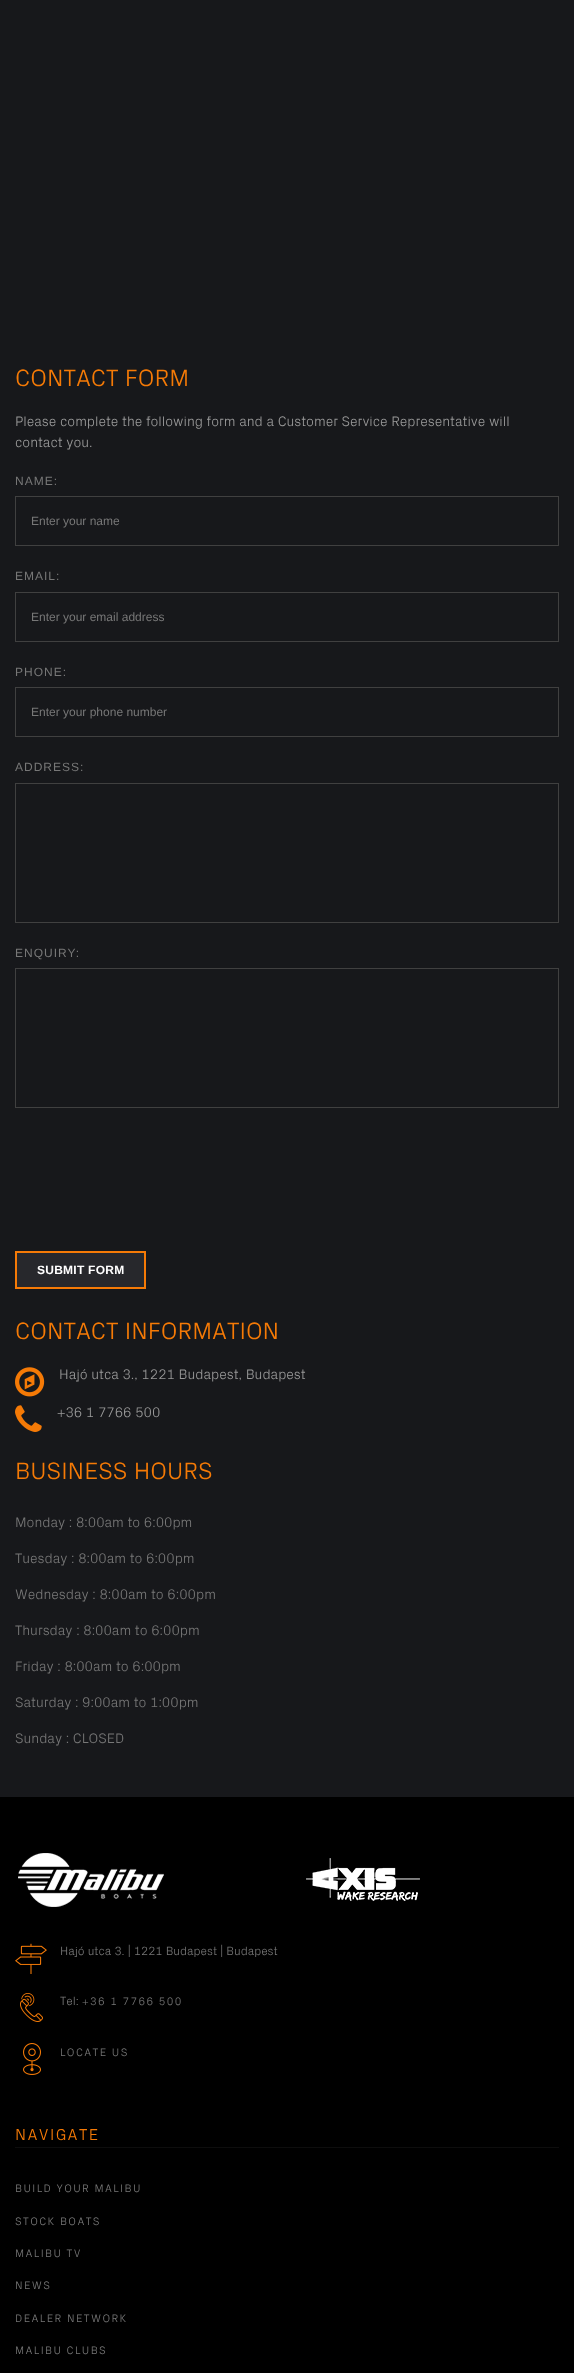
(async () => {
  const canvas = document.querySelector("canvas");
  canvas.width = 574;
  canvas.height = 2373;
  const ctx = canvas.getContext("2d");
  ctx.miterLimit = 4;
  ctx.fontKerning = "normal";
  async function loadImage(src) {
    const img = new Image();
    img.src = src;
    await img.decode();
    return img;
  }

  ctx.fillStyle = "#17181b";
  ctx.fillRect(0, 0, 574, 2373);
  ctx.strokeStyle = "#404040";
  ctx.strokeRect(15.5, 496.5, 543, 49);
  ctx.strokeRect(15.5, 592.5, 543, 49);
  ctx.strokeRect(15.5, 687.5, 543, 49);
  ctx.strokeRect(15.5, 783.5, 543, 139);
  ctx.strokeRect(15.5, 968.5, 543, 139);
  ctx.fillStyle = "#27282c";
  ctx.beginPath();
  ctx.rect(16, 1252, 129, 36);
  ctx.fill();
  ctx.strokeStyle = "#f57a06";
  ctx.lineWidth = 2;
  ctx.stroke();
  ctx.drawImage(await loadImage("img/1.png"), 15, 1367, 30, 30);
  ctx.drawImage(await loadImage("img/2.png"), 15, 1405, 27, 27);
  ctx.fillStyle = "#000000";
  ctx.fillRect(0, 1797, 574, 576);
  ctx.drawImage(await loadImage("img/3.png"), 18, 1853, 146, 54);
  ctx.drawImage(await loadImage("img/4.png"), 306, 1858, 114, 43);
  ctx.drawImage(await loadImage("img/5.png"), 15, 1943, 32, 31);
  ctx.drawImage(await loadImage("img/6.png"), 20, 1993, 23, 29);
  ctx.drawImage(await loadImage("img/7.png"), 23, 2043, 18, 32);
  ctx.fillStyle = "#0d0d0d";
  ctx.fillRect(15, 2147, 544, 1);
  ctx.font = "300 24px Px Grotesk";
  ctx.fillStyle = "#f57a06";
  ctx.fillText("CONTACT FORM", 15, 386);
  ctx.font = "300 14px Px Grotesk";
  ctx.fillStyle = "#999999";
  ctx.fillText("Please complete the following form and a Customer Service Representative will", 15, 426);
  ctx.fillText("contact you.", 15, 447);
  ctx.letterSpacing = "1px";
  ctx.font = "12px Liberation Sans";
  ctx.fillStyle = "#777777";
  ctx.fillText("NAME:", 15, 485);
  ctx.letterSpacing = "0px";
  ctx.fillText("Enter your name", 31, 525);
  ctx.letterSpacing = "1px";
  ctx.fillText("EMAIL:", 15, 580);
  ctx.letterSpacing = "0px";
  ctx.fillText("Enter your email address", 31, 621);
  ctx.letterSpacing = "1px";
  ctx.fillText("PHONE:", 15, 676);
  ctx.letterSpacing = "0px";
  ctx.fillText("Enter your phone number", 31, 716);
  ctx.letterSpacing = "1px";
  ctx.fillText("ADDRESS:", 15, 771);
  ctx.fillText("ENQUIRY:", 15, 957);
  ctx.letterSpacing = "0.25px";
  ctx.font = "bold 12px Liberation Sans";
  ctx.fillStyle = "#ffffff";
  ctx.fillText("SUBMIT FORM", 37, 1274);
  ctx.letterSpacing = "0px";
  ctx.font = "300 24px Px Grotesk";
  ctx.fillStyle = "#f57a06";
  ctx.fillText("CONTACT INFORMATION", 15, 1339);
  ctx.font = "300 14px Px Grotesk";
  ctx.fillStyle = "#999999";
  ctx.fillText("Hajó utca 3., 1221 Budapest, Budapest", 59, 1379);
  ctx.fillText("+36 1 7766 500", 57, 1417);
  ctx.font = "300 24px Px Grotesk";
  ctx.fillStyle = "#f57a06";
  ctx.fillText("BUSINESS HOURS", 15, 1479);
  ctx.font = "300 14px Px Grotesk";
  ctx.fillStyle = "#777777";
  for (const [text, x, y] of [
    ["Monday : 8:00am to 6:00pm", 15, 1527],
    ["Tuesday : 8:00am to 6:00pm", 15, 1563],
    ["Wednesday : 8:00am to 6:00pm", 15, 1599],
    ["Thursday : 8:00am to 6:00pm", 15, 1635],
    ["Friday : 8:00am to 6:00pm", 15, 1671],
    ["Saturday : 9:00am to 1:00pm", 15, 1707],
    ["Sunday : CLOSED", 15, 1743],
  ]) {
    ctx.fillText(text, x, y);
  }
  ctx.font = "300 12px Px Grotesk";
  ctx.fillText("Hajó utca 3. | 1221 Budapest | Budapest", 60, 1955);
  ctx.fillText("Tel:", 60, 2005);
  ctx.letterSpacing = "1.4px";
  ctx.font = "300 11px Px Grotesk";
  ctx.fillText("+36 1 7766 500", 82, 2005);
  ctx.fillText("LOCATE US", 60, 2056);
  ctx.font = "300 16px Px Grotesk";
  ctx.fillStyle = "#f57a06";
  ctx.fillText("NAVIGATE", 15, 2140);
  ctx.font = "300 11px Px Grotesk";
  ctx.fillStyle = "#777777";
  for (const [text, x, y] of [
    ["BUILD YOUR MALIBU", 15, 2192],
    ["STOCK BOATS", 15, 2225],
    ["MALIBU TV", 15, 2257],
    ["NEWS", 15, 2289],
    ["DEALER NETWORK", 15, 2322],
    ["MALIBU CLUBS", 15, 2354],
  ]) {
    ctx.fillText(text, x, y);
  }
})();
